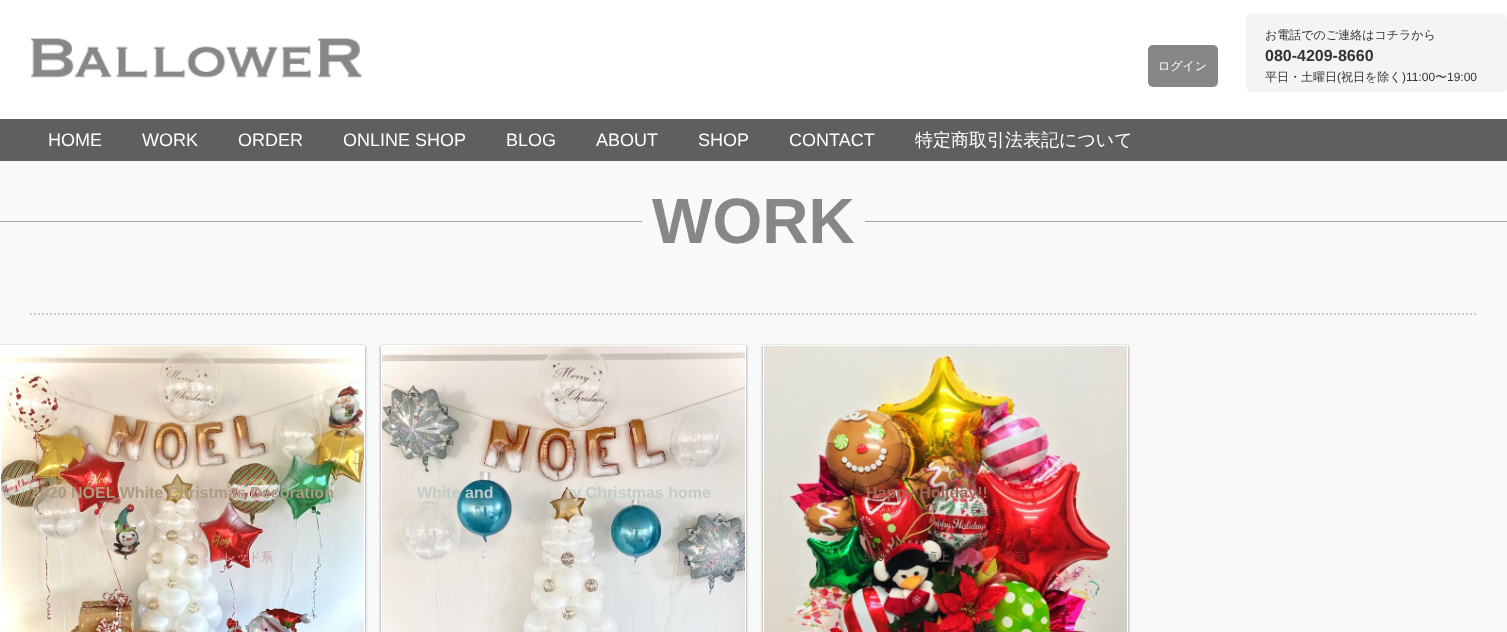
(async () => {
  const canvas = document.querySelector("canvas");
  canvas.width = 1507;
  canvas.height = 632;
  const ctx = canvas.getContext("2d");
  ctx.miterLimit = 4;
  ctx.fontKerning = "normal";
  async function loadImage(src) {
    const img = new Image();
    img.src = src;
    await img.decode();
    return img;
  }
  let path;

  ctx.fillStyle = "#f9f9f9";
  ctx.fillRect(0, 0, 1507, 632);
  ctx.fillStyle = "#ffffff";
  ctx.fillRect(0, 0, 1507, 119);
  ctx.drawImage(await loadImage("img/1.png"), 31, 38, 331, 40);
  ctx.fillStyle = "#888686";
  ctx.beginPath();
  ctx.roundRect(1148, 45, 70, 42, 5);
  ctx.fill();
  ctx.fillStyle = "#f4f4f4";
  ctx.beginPath();
  ctx.roundRect(1246, 14, 261, 78, 5);
  ctx.fill();
  for (const [x, y, w, h, color] of [
    [0, 119, 1507, 42, "#5f5f5f"],
    [0, 221, 1507, 1, "#a8a5a1"],
    [642, 221, 223, 1, "#f9f9f9"],
  ]) {
    ctx.fillStyle = color;
    ctx.fillRect(x, y, w, h);
  }
  path = new Path2D("M30 314H1477");
  ctx.strokeStyle = "#cccccc";
  ctx.lineWidth = 2;
  ctx.setLineDash([2, 2]);
  ctx.stroke(path);
  ctx.fillStyle = "rgba(0, 0, 0, 0.5)";
  ctx.filter = "blur(1.5px)";
  ctx.beginPath();
  ctx.rect(0, 346, 365, 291);
  ctx.fill();
  ctx.filter = "none";
  ctx.strokeStyle = "#ffffff";
  ctx.lineWidth = 1;
  ctx.setLineDash([]);
  ctx.strokeRect(0.5, 345.5, 364, 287);
  ctx.drawImage(await loadImage("img/2.png"), 1, 346, 363, 286);
  ctx.filter = "blur(1.5px)";
  ctx.beginPath();
  ctx.rect(381, 346, 365, 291);
  ctx.fill();
  ctx.filter = "none";
  ctx.strokeRect(381.5, 345.5, 364, 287);
  ctx.drawImage(await loadImage("img/3.png"), 382, 346, 363, 286);
  ctx.filter = "blur(1.5px)";
  ctx.beginPath();
  ctx.rect(763, 346, 365, 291);
  ctx.fill();
  ctx.filter = "none";
  ctx.strokeRect(763.5, 345.5, 364, 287);
  ctx.drawImage(await loadImage("img/4.png"), 764, 346, 363, 286);
  ctx.font = "500 12px WenQuanYi Zen Hei";
  ctx.fillStyle = "#ffffff";
  ctx.fillText("ログイン", 1158, 70);
  ctx.fillStyle = "#333333";
  ctx.fillText("お電話でのご連絡はコチラから", 1265, 39);
  ctx.font = "bold 16px Liberation Sans";
  ctx.fillText("080-4209-8660", 1265, 61);
  ctx.font = "500 12px WenQuanYi Zen Hei";
  ctx.fillText("平日・土曜日", 1265, 81);
  ctx.font = "12px Liberation Sans";
  ctx.fillText("(", 1337, 81);
  ctx.font = "500 12px WenQuanYi Zen Hei";
  ctx.fillText("祝日を除く", 1341, 81);
  ctx.font = "12px Liberation Sans";
  ctx.fillText(")11:00", 1402, 81);
  ctx.font = "500 12px WenQuanYi Zen Hei";
  ctx.fillText("〜", 1435, 81);
  ctx.font = "12px Liberation Sans";
  ctx.fillText("19:00", 1447, 81);
  ctx.font = "18px Liberation Sans";
  ctx.fillStyle = "#ffffff";
  for (const [text, x, y] of [
    ["HOME", 48, 146],
    ["WORK", 142, 146],
    ["ORDER", 238, 146],
    ["ONLINE SHOP", 343, 146],
    ["BLOG", 506, 146],
    ["ABOUT", 596, 146],
    ["SHOP", 698, 146],
    ["CONTACT", 789, 146],
  ]) {
    ctx.fillText(text, x, y);
  }
  ctx.font = "500 18px WenQuanYi Zen Hei";
  ctx.fillText("特定商取引法表記について", 915, 146);
  ctx.font = "bold 64px Liberation Sans";
  ctx.fillStyle = "#888686";
  ctx.fillText("WORK", 652, 243);
  ctx.font = "bold 16px Liberation Sans";
  ctx.fillStyle = "#af9a82";
  ctx.fillText("2020 NOEL White Christmas Decoration", 31, 498);
  ctx.font = "500 12px WenQuanYi Zen Hei";
  ctx.fillStyle = "#c9a4a3";
  ctx.fillText("レッド系", 224, 561);
  ctx.font = "bold 16px Liberation Sans";
  ctx.fillStyle = "#c3cbc7";
  ctx.fillText("White and", 417, 498);
  ctx.fillText("ry Christmas home", 566, 498);
  ctx.fillStyle = "#a9665a";
  ctx.fillText("Happy Holiday!!", 866, 498);
  ctx.font = "12px Liberation Sans";
  ctx.fillStyle = "#613930";
  ctx.fillText("5000", 864, 561);
  ctx.font = "500 12px WenQuanYi Zen Hei";
  ctx.fillStyle = "#6d6c65";
  ctx.fillText("卓上", 926, 561);
  ctx.fillStyle = "#a7272e";
  ctx.fillText("卓上　季節", 966, 561);
})();
